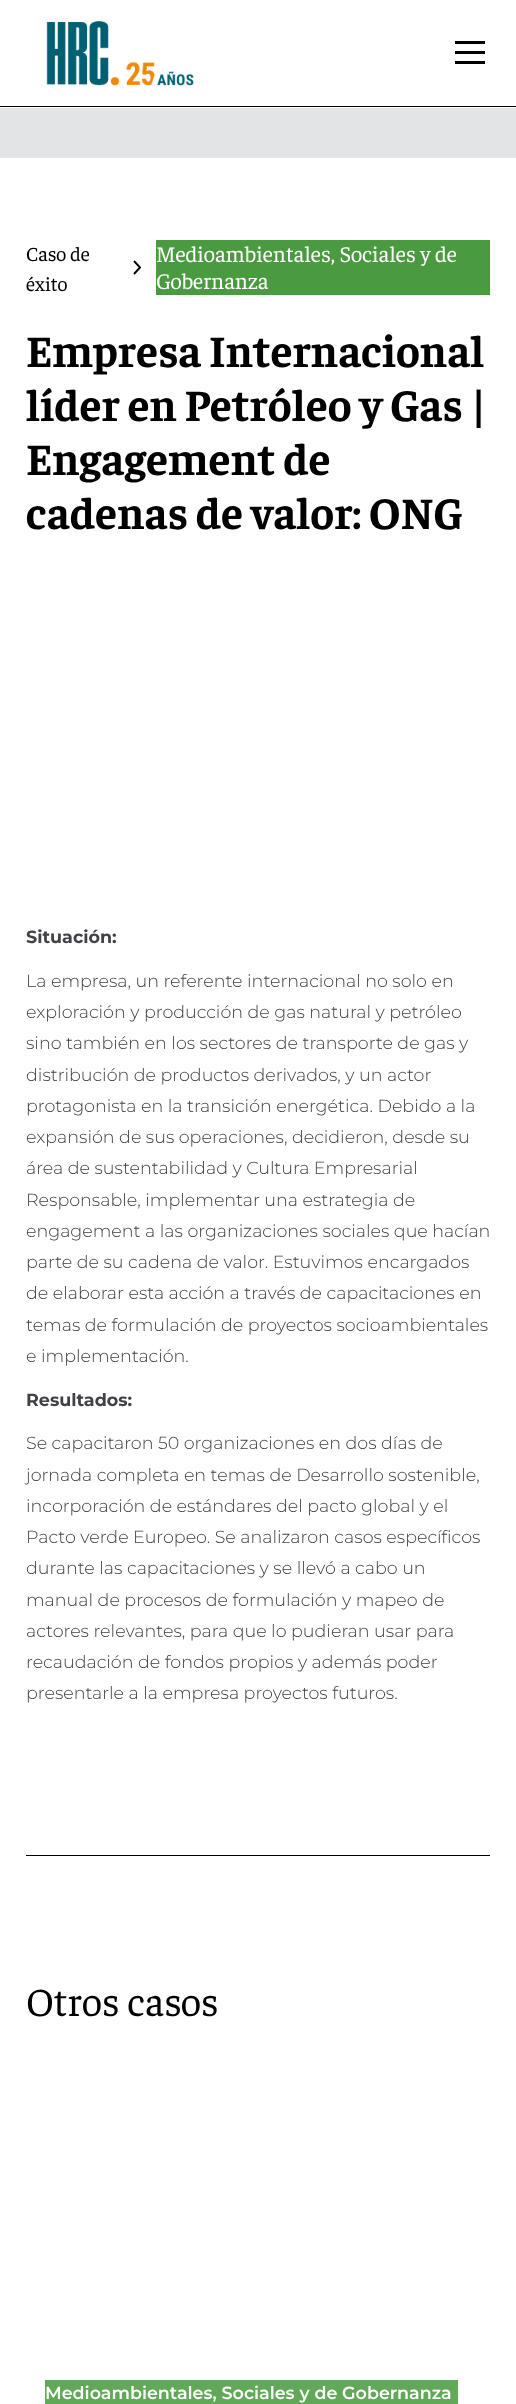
(async () => {
  const canvas = document.querySelector("canvas");
  canvas.width = 516;
  canvas.height = 2404;
  const ctx = canvas.getContext("2d");
  ctx.miterLimit = 4;
  ctx.fontKerning = "normal";
  async function loadImage(src) {
    const img = new Image();
    img.src = src;
    await img.decode();
    return img;
  }
  let path;

  ctx.fillStyle = "#e3e4e6";
  ctx.fillRect(0, 0, 516, 2404);
  ctx.fillStyle = "#ffffff";
  ctx.fillRect(0, 0, 516, 108);
  ctx.fillStyle = "#000000";
  ctx.fillRect(0, 106, 516, 1);
  ctx.drawImage(await loadImage("img/1.png"), 46, 21, 148, 65);
  for (const [x, y, w, h, color] of [
    [455, 41, 30, 3, "#000000"],
    [455, 51, 30, 3, "#000000"],
    [455, 61, 30, 3, "#000000"],
    [0, 158, 516, 2246, "#ffffff"],
  ]) {
    ctx.fillStyle = color;
    ctx.fillRect(x, y, w, h);
  }
  path = new Path2D("M134 261L140 267.5L134 274");
  ctx.strokeStyle = "#000000";
  ctx.lineWidth = 1.9;
  ctx.stroke(path);
  for (const [x, y, w, h, color] of [
    [156, 240, 334, 55, "#4a9b40"],
    [26, 1855, 464, 1, "#000000"],
    [45, 2380, 413, 24, "#61a859"],
  ]) {
    ctx.fillStyle = color;
    ctx.fillRect(x, y, w, h);
  }
  ctx.font = "20px Faustina";
  ctx.fillStyle = "#000000";
  ctx.fillText("Caso de", 26, 261);
  ctx.fillText("éxito", 26, 291);
  ctx.font = "22.5px Faustina";
  ctx.fillStyle = "#ffffff";
  ctx.fillText("Medioambientales, Sociales y de", 156, 262);
  ctx.fillText("Gobernanza", 156, 289);
  ctx.font = "bold 45px Faustina";
  ctx.fillStyle = "#000000";
  for (const [text, x, y] of [
    ["Empresa Internacional", 26, 367],
    ["líder en Petróleo y Gas |", 26, 421],
    ["Engagement de", 26, 475],
    ["cadenas de valor: ONG", 26, 529],
  ]) {
    ctx.fillText(text, x, y);
  }
  ctx.font = "bold 17.5px Montserrat";
  ctx.fillStyle = "#404047";
  ctx.fillText("Situación:", 26, 943);
  ctx.font = "300 17.5px Montserrat";
  for (const [text, x, y] of [
    ["La empresa, un referente internacional no solo en", 26, 987],
    ["exploración y producción de gas natural y petróleo", 26, 1018],
    ["sino también en los sectores de transporte de gas y", 26, 1049],
    ["distribución de productos derivados, y un actor", 26, 1081],
    ["protagonista en la transición energética. Debido a la", 26, 1112],
    ["expansión de sus operaciones, decidieron, desde su", 26, 1143],
    ["área de sustentabilidad y Cultura Empresarial", 26, 1174],
    ["Responsable, implementar una estrategia de", 26, 1206],
    ["engagement a las organizaciones sociales que hacían", 26, 1237],
    ["parte de su cadena de valor. Estuvimos encargados", 26, 1268],
    ["de elaborar esta acción a través de capacitaciones en", 26, 1299],
    ["temas de formulación de proyectos socioambientales", 26, 1331],
    ["e implementación.", 26, 1362],
  ]) {
    ctx.fillText(text, x, y);
  }
  ctx.font = "bold 17.5px Montserrat";
  ctx.fillText("Resultados:", 26, 1406);
  ctx.font = "300 17.5px Montserrat";
  for (const [text, x, y] of [
    ["Se capacitaron 50 organizaciones en dos días de", 26, 1449],
    ["jornada completa en temas de Desarrollo sostenible,", 26, 1481],
    ["incorporación de estándares del pacto global y el", 26, 1512],
    ["Pacto verde Europeo. Se analizaron casos específicos", 26, 1543],
    ["durante las capacitaciones y se llevó a cabo un", 26, 1574],
    ["manual de procesos de formulación y mapeo de", 26, 1606],
    ["actores relevantes, para que lo pudieran usar para", 26, 1637],
    ["recaudación de fondos propios y además poder", 26, 1668],
    ["presentarle a la empresa proyectos futuros.", 26, 1699],
  ]) {
    ctx.fillText(text, x, y);
  }
  ctx.font = "40px Faustina";
  ctx.fillStyle = "#000000";
  ctx.fillText("Otros casos", 26, 2016);
  ctx.font = "600 17.5px Montserrat";
  ctx.fillStyle = "#ffffff";
  ctx.fillText("Medioambientales, Sociales y de Gobernanza", 45, 2399);
})();
